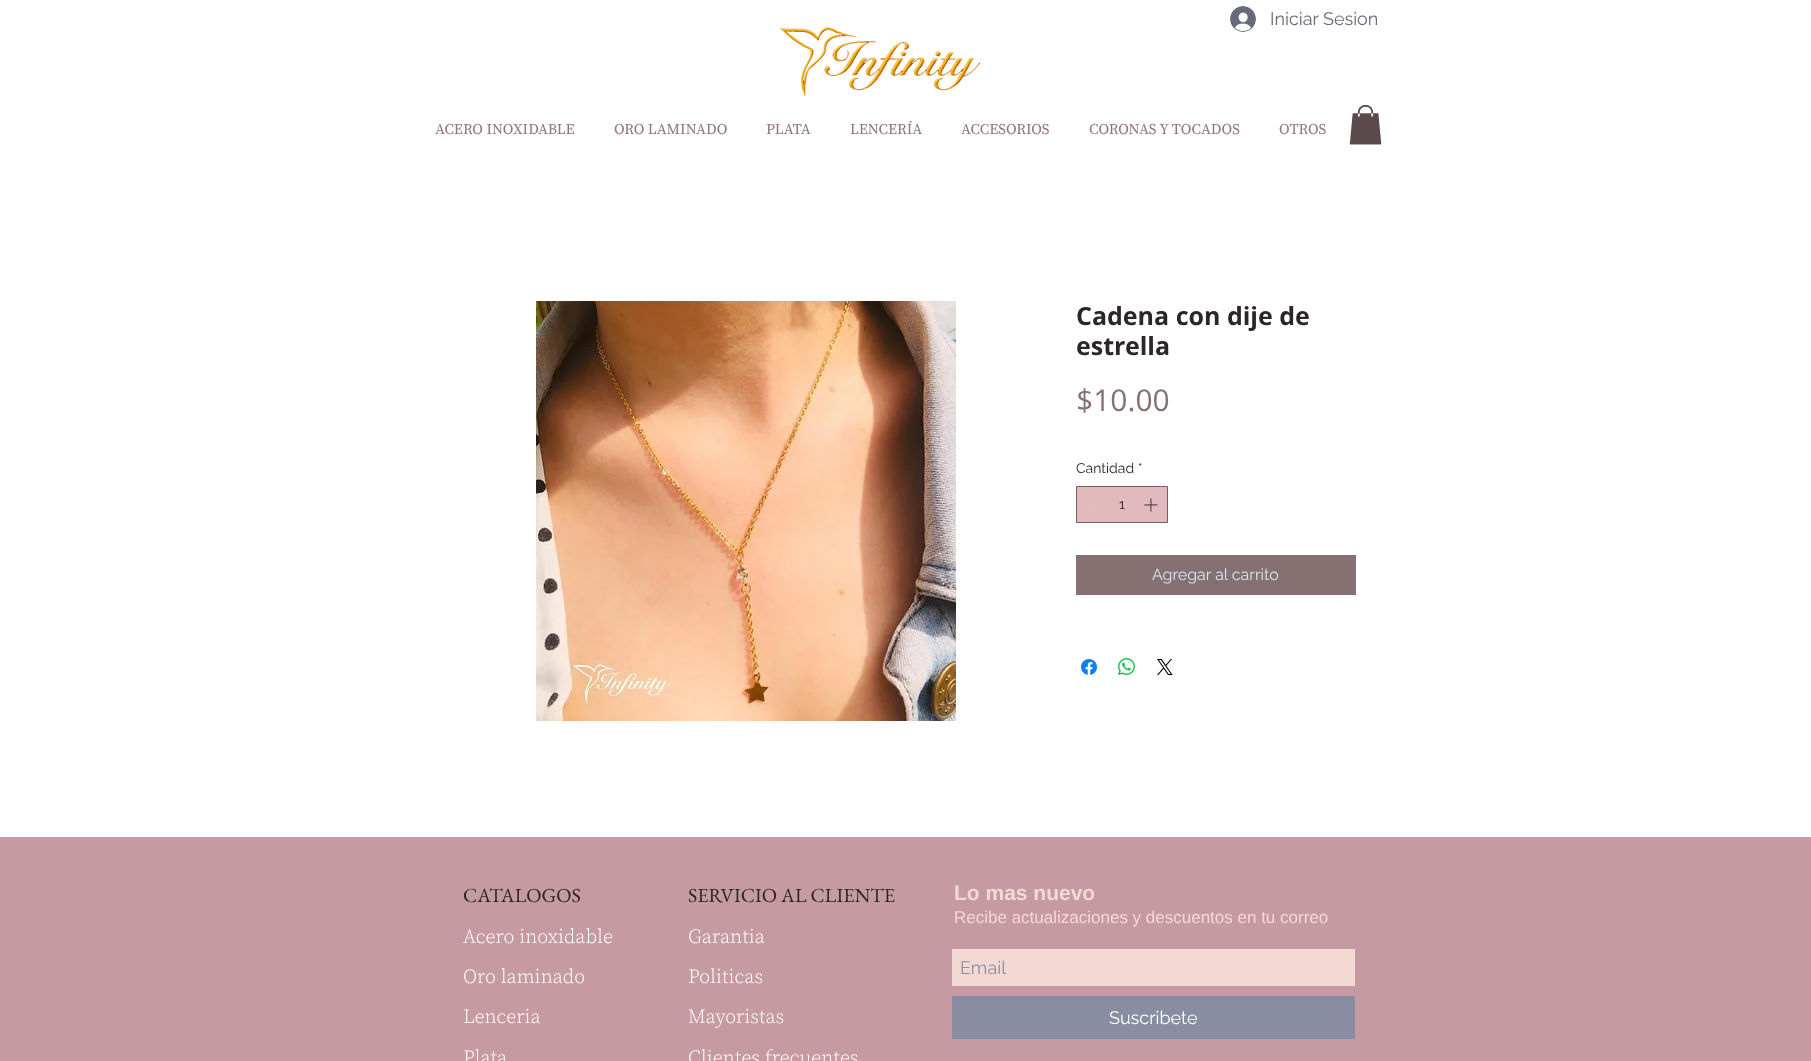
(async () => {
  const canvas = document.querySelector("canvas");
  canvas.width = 1811;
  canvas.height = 1061;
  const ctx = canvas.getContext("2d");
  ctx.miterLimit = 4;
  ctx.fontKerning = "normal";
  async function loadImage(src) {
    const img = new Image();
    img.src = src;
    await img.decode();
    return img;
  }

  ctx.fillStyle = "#ffffff";
  ctx.fillRect(0, 0, 1811, 1061);
  ctx.drawImage(await loadImage("img/1.png"), 1230, 6, 26, 26);
  ctx.drawImage(await loadImage("img/2.png"), 780, 27, 201, 69);
  ctx.drawImage(await loadImage("img/3.png"), 1349, 105, 33, 40);
  ctx.drawImage(await loadImage("img/4.png"), 536, 301, 420, 420);
  ctx.fillStyle = "#e0babd";
  ctx.beginPath();
  ctx.rect(1076.5, 486.5, 91, 36);
  ctx.fill();
  ctx.strokeStyle = "#756162";
  ctx.stroke();
  ctx.fillStyle = "#d4c1c2";
  ctx.fillRect(1088, 505, 13, 1);
  ctx.drawImage(await loadImage("img/5.png"), 1144, 498, 14, 14);
  ctx.fillStyle = "#867071";
  ctx.fillRect(1076, 555, 280, 40);
  ctx.drawImage(await loadImage("img/6.png"), 1081, 659, 16, 16);
  ctx.drawImage(await loadImage("img/7.png"), 1118, 658, 17, 17);
  ctx.drawImage(await loadImage("img/8.png"), 1157, 659, 16, 16);
  for (const [x, y, w, h, color] of [
    [0, 837, 1811, 224, "#c69aa3"],
    [952, 949, 403, 37, "#f4d8d4"],
    [952, 996, 403, 43, "#898da2"],
  ]) {
    ctx.fillStyle = color;
    ctx.fillRect(x, y, w, h);
  }
  ctx.font = "18px Raleway";
  ctx.fillStyle = "#676a79";
  ctx.fillText("Iniciar Sesion", 1270, 25);
  ctx.font = "15px Source Serif Pro";
  ctx.fillStyle = "#95747a";
  for (const [text, x, y] of [
    ["ACERO INOXIDABLE", 435, 134],
    ["ORO LAMINADO", 614, 134],
    ["PLATA", 766, 134],
    ["LENCERÍA", 850, 134],
    ["ACCESORIOS", 961, 134],
    ["CORONAS Y TOCADOS", 1089, 134],
    ["OTROS", 1279, 134],
  ]) {
    ctx.fillText(text, x, y);
  }
  ctx.font = "bold 25px Open Sans";
  ctx.fillStyle = "#2d2526";
  ctx.fillText("Cadena con dije de", 1076, 325);
  ctx.fillText("estrella", 1076, 355);
  ctx.font = "30px Open Sans";
  ctx.fillStyle = "#867071";
  ctx.fillText("$10.00", 1076, 411);
  ctx.font = "14px Raleway";
  ctx.fillStyle = "#2d2526";
  for (const [text, x, y] of [
    ["Cantidad", 1076, 473],
    ["*", 1138, 473],
    ["1", 1119, 509],
  ]) {
    ctx.fillText(text, x, y);
  }
  ctx.font = "16px Raleway";
  ctx.fillStyle = "#d6e7ed";
  ctx.fillText("Agregar al carrito", 1152, 580);
  ctx.font = "20px EB Garamond";
  ctx.fillStyle = "#2d2526";
  ctx.fillText("CATALOGOS", 463, 902);
  ctx.font = "300 20px Source Serif Pro";
  ctx.fillStyle = "#ffffff";
  for (const [text, x, y] of [
    ["Acero inoxidable", 463, 943],
    ["Oro laminado", 463, 983],
    ["Lenceria", 463, 1023],
    ["Plata", 463, 1064],
  ]) {
    ctx.fillText(text, x, y);
  }
  ctx.font = "20px EB Garamond";
  ctx.fillStyle = "#2d2526";
  ctx.fillText("SERVICIO AL CLIENTE", 688, 902);
  ctx.font = "300 20px Source Serif Pro";
  ctx.fillStyle = "#ffffff";
  for (const [text, x, y] of [
    ["Garantia", 688, 943],
    ["Politicas", 688, 983],
    ["Mayoristas", 688, 1023],
    ["Clientes frecuentes", 688, 1064],
  ]) {
    ctx.fillText(text, x, y);
  }
  ctx.font = "bold 21px Liberation Sans";
  ctx.fillStyle = "#f4d8d4";
  ctx.fillText("Lo mas nuevo", 954, 900);
  ctx.font = "17px Liberation Sans";
  ctx.fillText("Recibe actualizaciones y descuentos en tu correo", 954, 923);
  ctx.font = "18px Raleway";
  ctx.fillStyle = "#898da2";
  ctx.fillText("Email", 960, 974);
  ctx.fillStyle = "#ffffff";
  ctx.fillText("Suscribete", 1109, 1024);
})();
